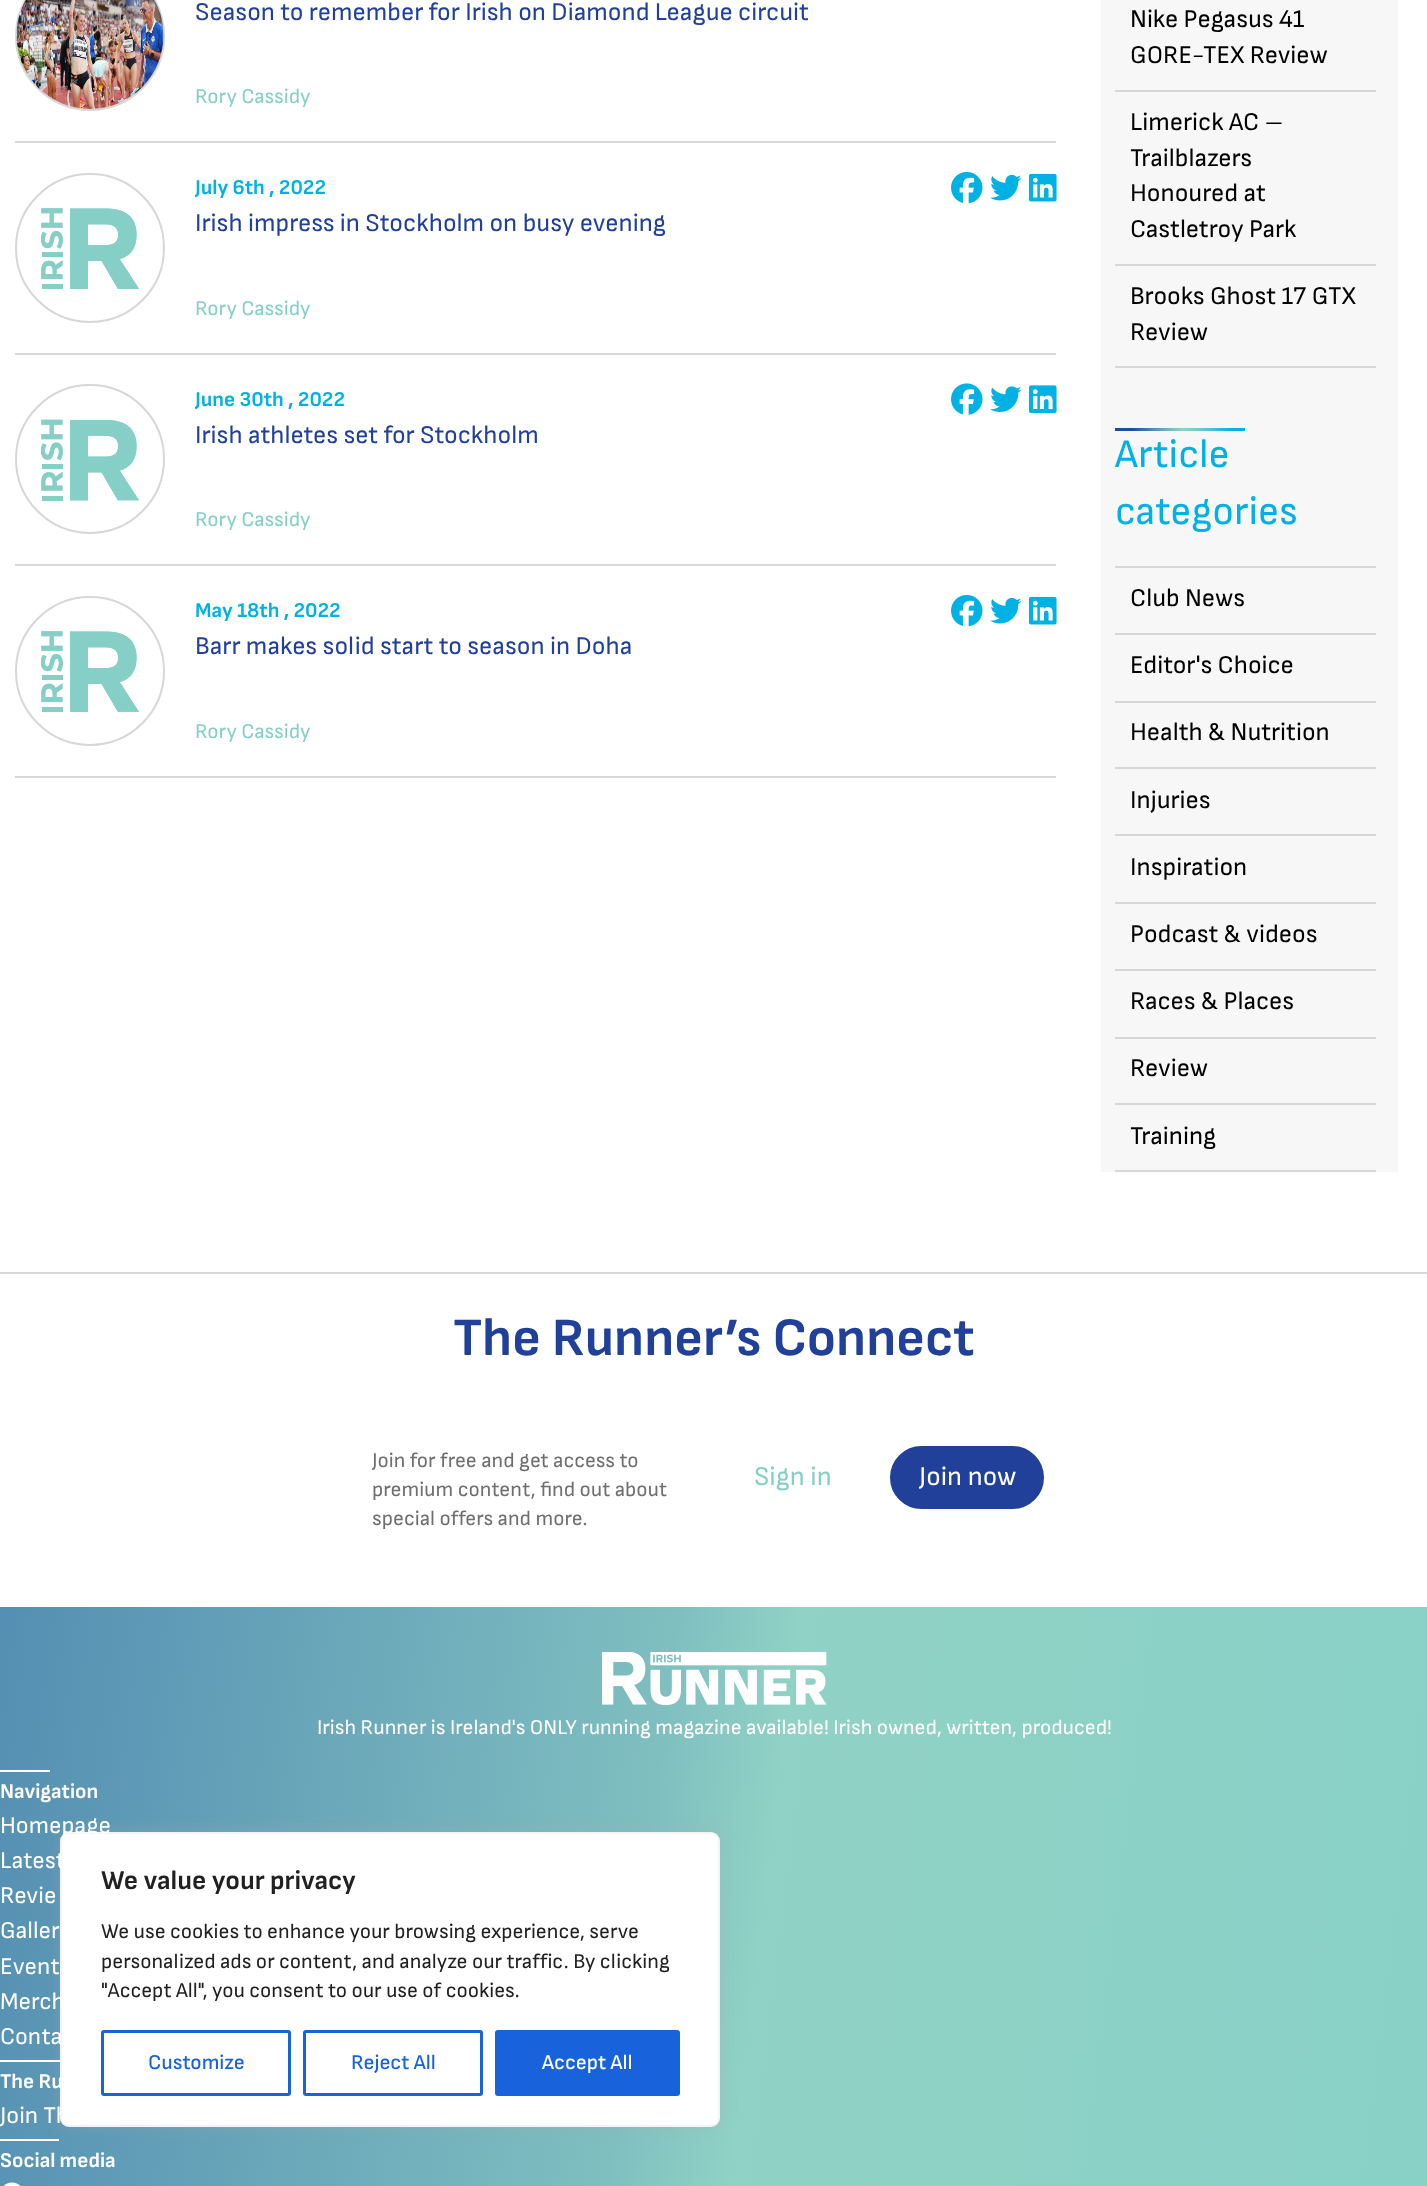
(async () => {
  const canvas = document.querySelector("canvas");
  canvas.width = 1427;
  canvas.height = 2186;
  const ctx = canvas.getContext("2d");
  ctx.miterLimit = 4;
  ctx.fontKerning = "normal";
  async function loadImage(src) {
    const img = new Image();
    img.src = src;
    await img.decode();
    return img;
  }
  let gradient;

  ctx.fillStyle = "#ffffff";
  ctx.fillRect(0, 0, 1427, 2186);
  ctx.fillStyle = "#d7d7d7";
  ctx.fillRect(15, 141, 1041, 2);
  ctx.beginPath();
  ctx.arc(90, 36, 74, 0, Math.PI * 2);
  ctx.strokeStyle = "#d7d7d7";
  ctx.lineWidth = 2;
  ctx.stroke();
  ctx.drawImage(await loadImage("img/1.png"), 16, 0, 148, 109);
  ctx.fillRect(15, 353, 1041, 2);
  ctx.drawImage(await loadImage("img/2.png"), 41, 208, 98, 81);
  ctx.beginPath();
  ctx.arc(90, 248, 74, 0, Math.PI * 2);
  ctx.stroke();
  ctx.drawImage(await loadImage("img/3.png"), 41, 208, 98, 81);
  ctx.drawImage(await loadImage("img/4.png"), 951, 171, 32, 33);
  ctx.drawImage(await loadImage("img/5.png"), 990, 174, 32, 27);
  ctx.drawImage(await loadImage("img/6.png"), 1029, 173, 28, 29);
  ctx.fillRect(15, 564, 1041, 2);
  ctx.drawImage(await loadImage("img/7.png"), 41, 419, 98, 82);
  ctx.beginPath();
  ctx.arc(90, 459, 74, 0, Math.PI * 2);
  ctx.stroke();
  ctx.drawImage(await loadImage("img/8.png"), 41, 419, 98, 82);
  ctx.drawImage(await loadImage("img/9.png"), 951, 383, 32, 32);
  ctx.drawImage(await loadImage("img/10.png"), 990, 386, 32, 26);
  ctx.drawImage(await loadImage("img/11.png"), 1029, 385, 28, 28);
  ctx.fillRect(15, 776, 1041, 2);
  ctx.drawImage(await loadImage("img/2.png"), 41, 631, 98, 81);
  ctx.beginPath();
  ctx.arc(90, 671, 74, 0, Math.PI * 2);
  ctx.stroke();
  ctx.drawImage(await loadImage("img/3.png"), 41, 631, 98, 81);
  ctx.drawImage(await loadImage("img/4.png"), 951, 594, 32, 33);
  ctx.drawImage(await loadImage("img/5.png"), 990, 597, 32, 27);
  ctx.drawImage(await loadImage("img/6.png"), 1029, 596, 28, 29);
  for (const [x, y, w, h, color] of [
    [1101, 0, 297, 1172, "#f7f7f7"],
    [1115, 90, 261, 2, "#d7d7d7"],
    [1115, 264, 261, 2, "#d7d7d7"],
    [1115, 366, 261, 2, "#d7d7d7"],
  ]) {
    ctx.fillStyle = color;
    ctx.fillRect(x, y, w, h);
  }
  gradient = ctx.createLinearGradient(1115, 429, 1245, 429);
  gradient.addColorStop(0, "#1a4ea2");
  gradient.addColorStop(0.13, "#1a4ea2");
  gradient.addColorStop(0.3, "#548fb3");
  gradient.addColorStop(0.44, "#7fbfc0");
  gradient.addColorStop(0.52, "#90d2c5");
  gradient.addColorStop(0.56, "#88d0c7");
  gradient.addColorStop(0.64, "#72cbcb");
  gradient.addColorStop(0.73, "#4ec3d3");
  gradient.addColorStop(0.84, "#1db8de");
  gradient.addColorStop(0.9, "#00b2e4");
  gradient.addColorStop(1, "#00b2e4");
  ctx.fillStyle = gradient;
  ctx.fillRect(1115, 428, 130, 3);
  for (const [x, y, w, h, color] of [
    [1115, 566, 261, 2, "#d7d7d7"],
    [1115, 633, 261, 2, "#d7d7d7"],
    [1115, 701, 261, 2, "#d7d7d7"],
    [1115, 767, 261, 2, "#d7d7d7"],
    [1115, 834, 261, 2, "#d7d7d7"],
    [1115, 902, 261, 2, "#d7d7d7"],
    [1115, 969, 261, 2, "#d7d7d7"],
    [1115, 1037, 261, 2, "#d7d7d7"],
    [1115, 1103, 261, 2, "#d7d7d7"],
    [1115, 1170, 261, 2, "#d7d7d7"],
    [0, 1272, 1427, 2, "#d7d7d7"],
  ]) {
    ctx.fillStyle = color;
    ctx.fillRect(x, y, w, h);
  }
  ctx.fillStyle = "#21409a";
  ctx.beginPath();
  ctx.roundRect(891, 1447, 152, 61, 30.5);
  ctx.fill();
  ctx.strokeStyle = "#21409a";
  ctx.stroke();
  gradient = ctx.createLinearGradient(-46, 1981, 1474, 2168);
  gradient.addColorStop(0, "#548fb3");
  gradient.addColorStop(0.44, "#7fbfc0");
  gradient.addColorStop(0.52, "#90d2c5");
  gradient.addColorStop(1, "#88d0c7");
  ctx.fillStyle = gradient;
  ctx.fillRect(0, 1607, 1427, 579);
  ctx.drawImage(await loadImage("img/12.png"), 602, 1652, 225, 54);
  for (const [x, y, w, h, color] of [
    [0, 1770, 50, 2, "#ffffff"],
    [0, 2060, 60, 2, "#ffffff"],
    [0, 2139, 59, 2, "#ffffff"],
  ]) {
    ctx.fillStyle = color;
    ctx.fillRect(x, y, w, h);
  }
  ctx.drawImage(await loadImage("img/13.png"), 3, 2182, 18, 4);
  ctx.fillStyle = "rgba(172, 171, 171, 0.3)";
  ctx.filter = "blur(7.5px)";
  ctx.beginPath();
  ctx.roundRect(60, 1830, 660, 296, 9);
  ctx.fill();
  ctx.filter = "none";
  ctx.fillStyle = "#ffffff";
  ctx.beginPath();
  ctx.roundRect(61, 1833, 658, 293, 8);
  ctx.fill();
  ctx.strokeStyle = "#f4f4f4";
  ctx.stroke();
  ctx.beginPath();
  ctx.roundRect(102.5, 2031.5, 187, 63, 1.5);
  ctx.strokeStyle = "#1863dc";
  ctx.lineWidth = 3;
  ctx.stroke();
  ctx.beginPath();
  ctx.roundRect(304.5, 2031.5, 177, 63, 1.5);
  ctx.stroke();
  ctx.fillStyle = "#1863dc";
  ctx.beginPath();
  ctx.roundRect(496.5, 2031.5, 182, 63, 1.5);
  ctx.fill();
  ctx.stroke();
  ctx.font = "25.5px Sofia Sans";
  ctx.fillStyle = "#21409a";
  ctx.fillText("Season to remember for Irish on Diamond League circuit", 195, 20);
  ctx.font = "21px Sofia Sans";
  ctx.fillStyle = "#85cfc7";
  ctx.fillText("Rory Cassidy", 195, 103);
  ctx.font = "bold 21px Sofia Sans";
  ctx.fillStyle = "#00b2e4";
  ctx.fillText("July 6th , 2022", 195, 194);
  ctx.font = "25.5px Sofia Sans";
  ctx.fillStyle = "#21409a";
  ctx.fillText("Irish impress in Stockholm on busy evening", 195, 231);
  ctx.font = "21px Sofia Sans";
  ctx.fillStyle = "#85cfc7";
  ctx.fillText("Rory Cassidy", 195, 315);
  ctx.font = "bold 21px Sofia Sans";
  ctx.fillStyle = "#00b2e4";
  ctx.fillText("June 30th , 2022", 195, 406);
  ctx.font = "25.5px Sofia Sans";
  ctx.fillStyle = "#21409a";
  ctx.fillText("Irish athletes set for Stockholm", 195, 443);
  ctx.font = "21px Sofia Sans";
  ctx.fillStyle = "#85cfc7";
  ctx.fillText("Rory Cassidy", 195, 526);
  ctx.font = "bold 21px Sofia Sans";
  ctx.fillStyle = "#00b2e4";
  ctx.fillText("May 18th , 2022", 195, 617);
  ctx.font = "25.5px Sofia Sans";
  ctx.fillStyle = "#21409a";
  ctx.fillText("Barr makes solid start to season in Doha", 195, 654);
  ctx.font = "21px Sofia Sans";
  ctx.fillStyle = "#85cfc7";
  ctx.fillText("Rory Cassidy", 195, 738);
  ctx.font = "25.5px Sofia Sans";
  ctx.fillStyle = "#000000";
  for (const [text, x, y] of [
    ["Nike Pegasus 41", 1130, 27],
    ["GORE-TEX Review", 1130, 63],
    ["Limerick AC –", 1130, 130],
    ["Trailblazers", 1130, 166],
    ["Honoured at", 1130, 201],
    ["Castletroy Park", 1130, 237],
    ["Brooks Ghost 17 GTX", 1130, 304],
    ["Review", 1130, 340],
  ]) {
    ctx.fillText(text, x, y);
  }
  ctx.font = "40.5px Sofia Sans";
  ctx.fillStyle = "#00b2e4";
  ctx.fillText("Article", 1115, 467);
  ctx.fillText("categories", 1115, 524);
  ctx.font = "25.5px Sofia Sans";
  ctx.fillStyle = "#000000";
  for (const [text, x, y] of [
    ["Club News", 1130, 606],
    ["Editor's Choice", 1130, 673],
    ["Health & Nutrition", 1130, 740],
    ["Injuries", 1130, 808],
    ["Inspiration", 1130, 875],
    ["Podcast & videos", 1130, 942],
    ["Races & Places", 1130, 1009],
    ["Review", 1130, 1076],
    ["Training", 1130, 1144],
  ]) {
    ctx.fillText(text, x, y);
  }
  ctx.font = "bold 54px Sofia Sans";
  ctx.fillStyle = "#21409a";
  ctx.fillText("The Runner’s Connect", 453, 1355);
  ctx.font = "21px Sofia Sans";
  ctx.fillStyle = "#6f6f6f";
  for (const [text, x, y] of [
    ["Join for free and get access to", 372, 1467],
    ["premium content, find out about", 372, 1496],
    ["special offers and more.", 372, 1525],
  ]) {
    ctx.fillText(text, x, y);
  }
  ctx.font = "27px Sofia Sans";
  ctx.fillStyle = "#85cfc7";
  ctx.fillText("Sign in", 754, 1485);
  ctx.fillStyle = "#ffffff";
  ctx.fillText("Join now", 919, 1485);
  ctx.font = "21px Sofia Sans";
  ctx.fillText("Irish Runner is Ireland's ONLY running magazine available! Irish owned, written, produced!", 317, 1734);
  ctx.font = "bold 21px Sofia Sans";
  ctx.fillText("Navigation", 0, 1798);
  ctx.font = "24px Sofia Sans";
  for (const [text, x, y] of [
    ["Homepage", 0, 1833],
    ["Latest", 0, 1868],
    ["Revie", 0, 1903],
    ["Galler", 0, 1938],
    ["Event", 0, 1974],
    ["Merch", 0, 2009],
    ["Conta", 0, 2044],
  ]) {
    ctx.fillText(text, x, y);
  }
  ctx.font = "bold 21px Sofia Sans";
  ctx.fillText("The Ru", 0, 2088);
  ctx.font = "24px Sofia Sans";
  ctx.fillText("Join Th", 0, 2123);
  ctx.font = "bold 21px Sofia Sans";
  ctx.fillText("Social media", 0, 2167);
  ctx.font = "bold 27px Sofia Sans";
  ctx.fillStyle = "#212121";
  ctx.fillText("We value your privacy", 101, 1889);
  ctx.font = "21px Sofia Sans";
  for (const [text, x, y] of [
    ["We use cookies to enhance your browsing experience, serve", 101, 1938],
    ["personalized ads or content, and analyze our traffic. By clicking", 101, 1968],
    ["\"Accept All\", you consent to our use of cookies.", 101, 1997],
  ]) {
    ctx.fillText(text, x, y);
  }
  ctx.font = "500 21px Sofia Sans";
  ctx.fillStyle = "#1863dc";
  ctx.fillText("Customize", 148, 2069);
  ctx.fillText("Reject All", 351, 2069);
  ctx.fillStyle = "#ffffff";
  ctx.fillText("Accept All", 542, 2069);
})();
